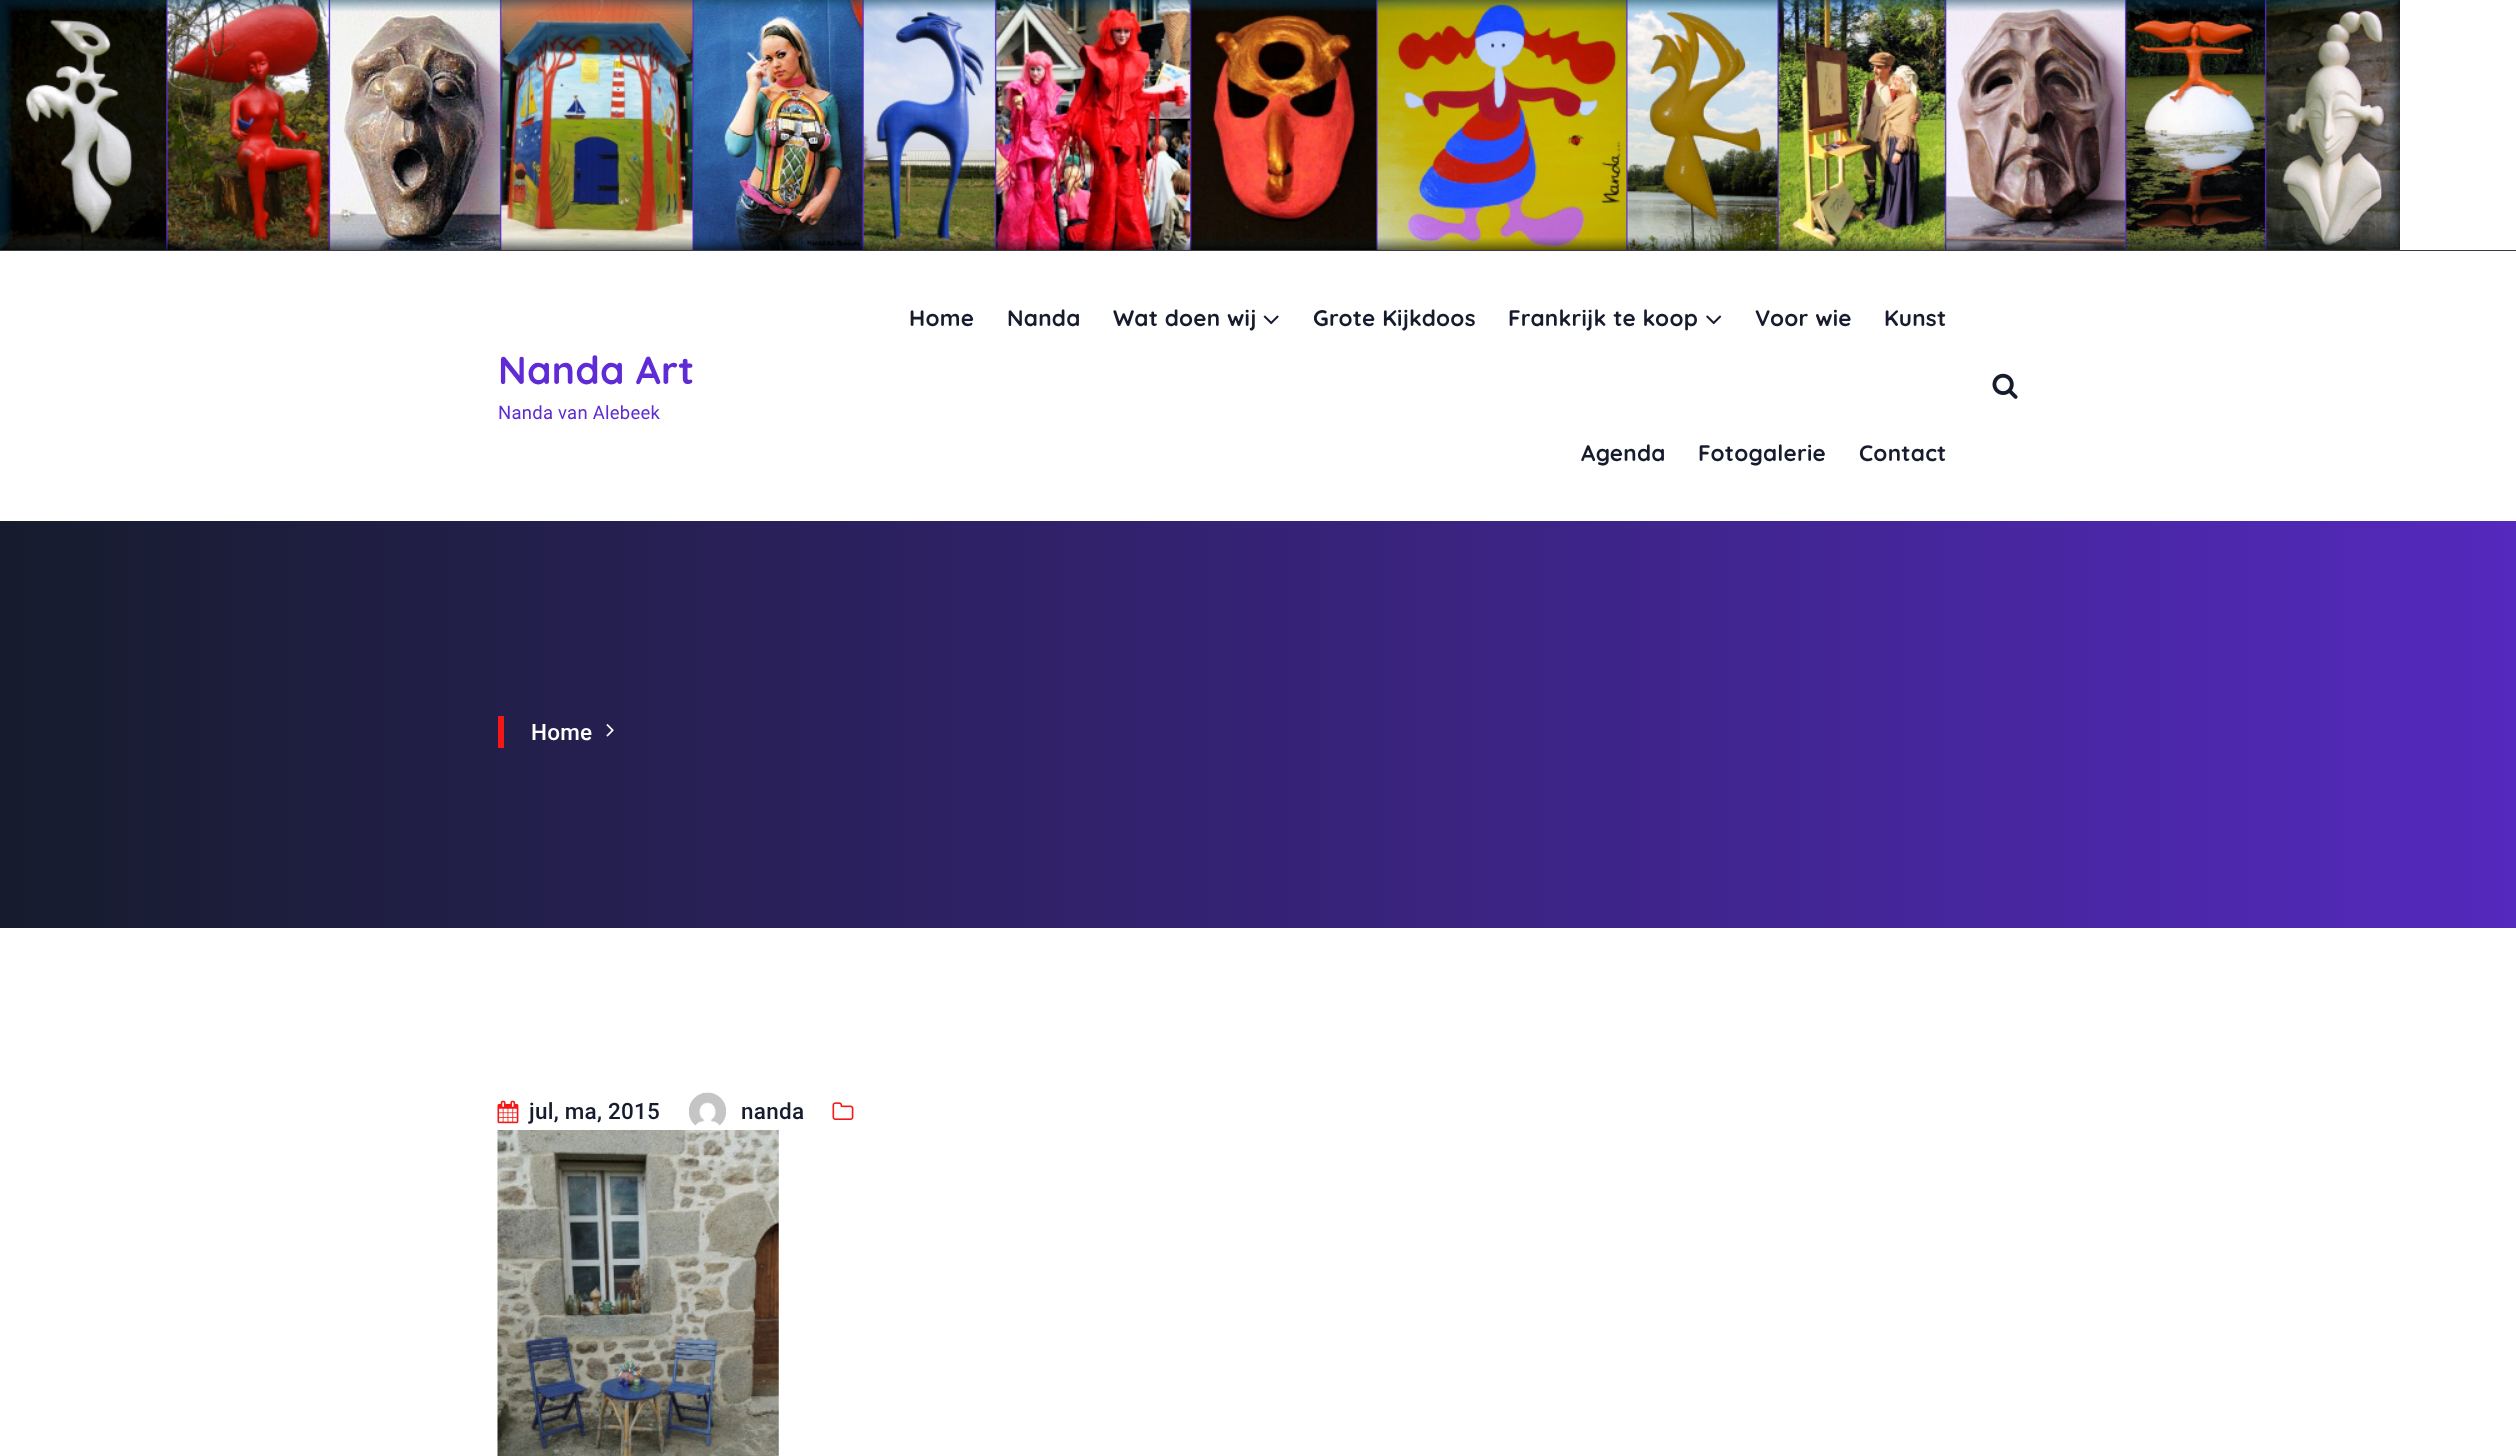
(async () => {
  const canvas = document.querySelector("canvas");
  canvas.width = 2516;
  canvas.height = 1456;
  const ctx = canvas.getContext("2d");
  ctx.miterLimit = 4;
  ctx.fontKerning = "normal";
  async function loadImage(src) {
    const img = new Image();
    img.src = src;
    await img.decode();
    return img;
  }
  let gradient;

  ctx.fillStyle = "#ffffff";
  ctx.fillRect(0, 0, 2516, 1456);
  ctx.drawImage(await loadImage("img/1.png"), 0, 0, 2400, 250);
  ctx.fillStyle = "#373c4a";
  ctx.fillRect(0, 250, 2516, 1);
  ctx.drawImage(await loadImage("img/2.png"), 1263, 315, 16, 10);
  ctx.drawImage(await loadImage("img/3.png"), 1706, 315, 16, 10);
  ctx.drawImage(await loadImage("img/4.png"), 1992, 373, 26, 26);
  gradient = ctx.createLinearGradient(0, 724, 2516, 724);
  gradient.addColorStop(0, "#161c2d");
  gradient.addColorStop(1, "#5429bd");
  ctx.fillStyle = gradient;
  ctx.fillRect(0, 521, 2516, 407);
  ctx.fillStyle = "#f31717";
  ctx.fillRect(498, 716, 6, 32);
  ctx.drawImage(await loadImage("img/5.png"), 606, 724, 8, 13);
  ctx.drawImage(await loadImage("img/6.png"), 497, 1100, 22, 24);
  ctx.drawImage(await loadImage("img/7.png"), 688, 1092, 39, 34);
  ctx.drawImage(await loadImage("img/8.png"), 832, 1102, 22, 18);
  ctx.drawImage(await loadImage("img/9.png"), 497, 1130, 282, 326);
  ctx.letterSpacing = "0.25px";
  ctx.font = "bold 39px Quicksand";
  ctx.fillStyle = "#5f2bd5";
  ctx.fillText("Nanda Art", 498, 384);
  ctx.font = "18.5px Roboto";
  ctx.fillText("Nanda van Alebeek", 498, 419);
  ctx.font = "bold 22.5px Quicksand";
  ctx.fillStyle = "#161c2d";
  for (const [text, x, y] of [
    ["Home", 909, 326],
    ["Nanda", 1007, 326],
    ["Wat doen wij", 1113, 326],
    ["Grote Kijkdoos", 1313, 326],
    ["Frankrijk te koop", 1508, 326],
    ["Voor wie", 1755, 326],
    ["Kunst", 1884, 326],
    ["Agenda", 1581, 461],
    ["Fotogalerie", 1698, 461],
    ["Contact", 1859, 461],
  ]) {
    ctx.fillText(text, x, y);
  }
  ctx.font = "500 22.5px Roboto";
  ctx.fillStyle = "#ffffff";
  ctx.fillText("Home", 531, 740);
  ctx.fillStyle = "#161c2d";
  ctx.fillText("jul, ma, 2015", 529, 1119);
  ctx.fillText("nanda", 741, 1119);
})();
